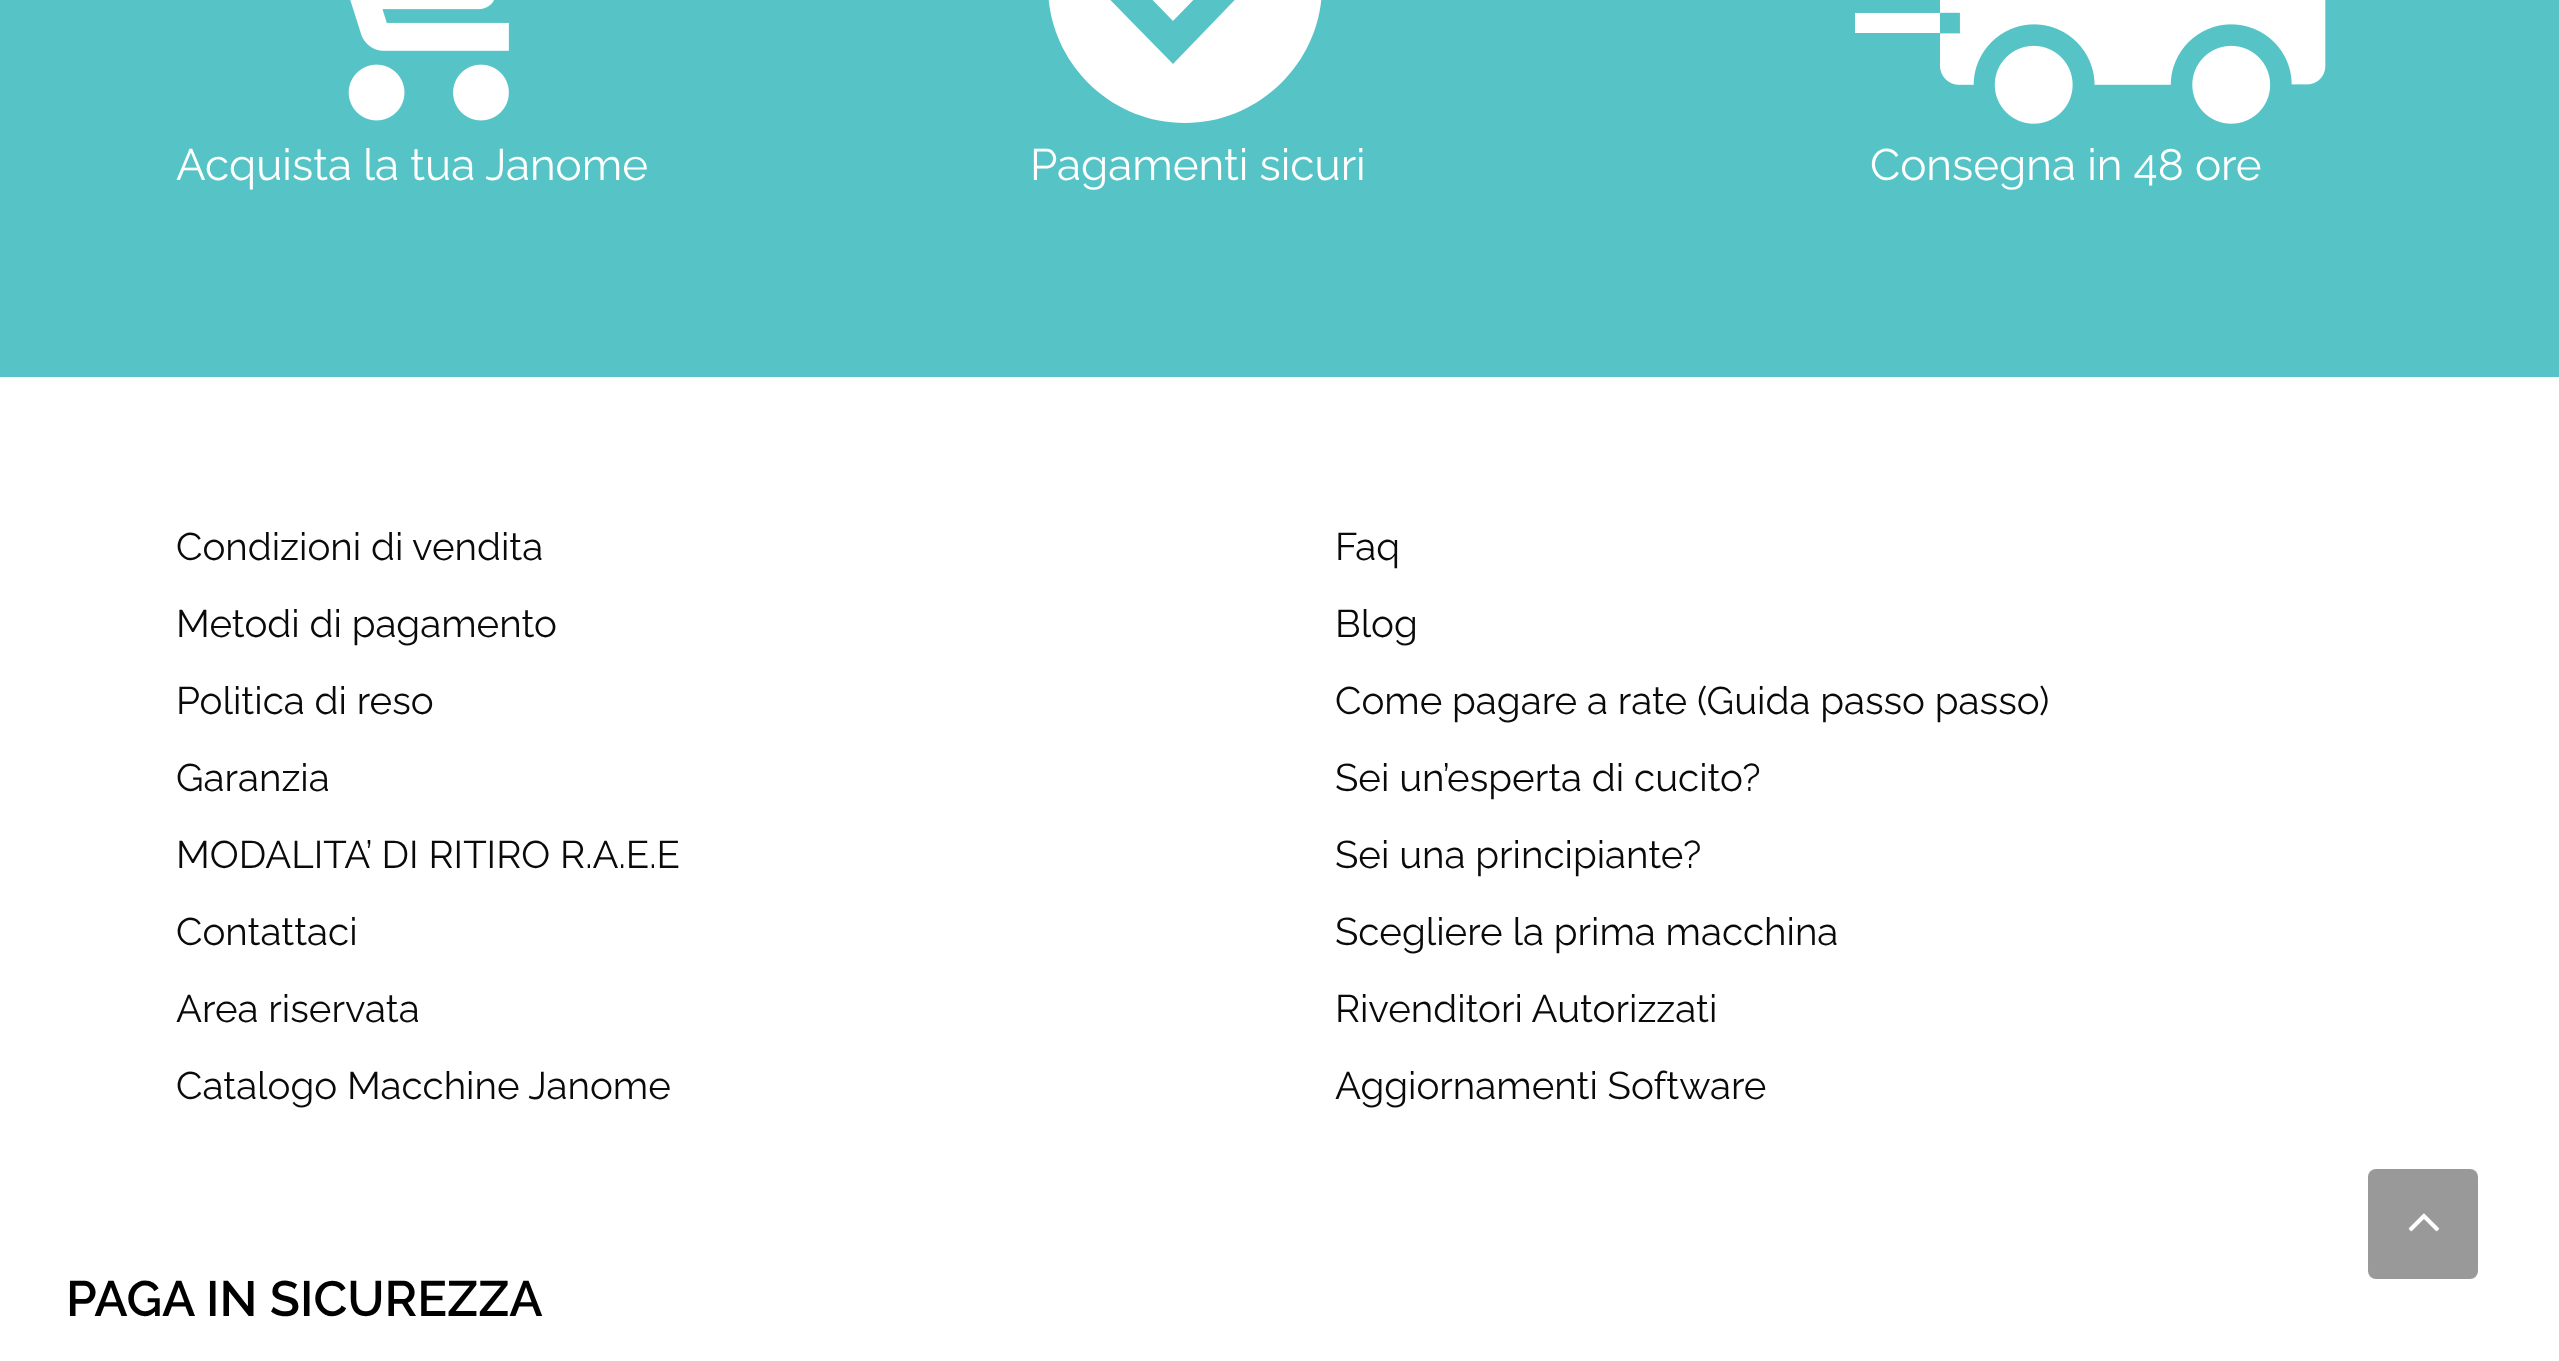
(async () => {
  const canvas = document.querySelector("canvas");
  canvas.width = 2559;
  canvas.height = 1361;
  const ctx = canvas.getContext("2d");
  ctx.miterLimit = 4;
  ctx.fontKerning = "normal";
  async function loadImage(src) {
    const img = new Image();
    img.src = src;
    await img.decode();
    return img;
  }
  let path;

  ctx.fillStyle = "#ffffff";
  ctx.fillRect(0, 0, 2559, 1361);
  ctx.fillStyle = "#56c4c6";
  ctx.fillRect(0, 0, 2559, 377);
  ctx.drawImage(await loadImage("img/1.png"), 348, 0, 161, 121);
  ctx.fillStyle = "#ffffff";
  path = new Path2D("M1173 64L1081-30L1102-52L1173 21L1291-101C1266-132 1227-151 1185-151C1109-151 1048-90 1048-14C1048 61 1109 123 1185 123C1260 123 1322 61 1322-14C1322-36 1316-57 1307-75Z");
  ctx.fill(path);
  ctx.drawImage(await loadImage("img/2.png"), 1855, 0, 471, 124);
  path = new Path2D("M0 381H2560");
  ctx.strokeStyle = "#ffffff";
  ctx.lineWidth = 8.2;
  ctx.setLineDash([16.5, 8.2]);
  ctx.stroke(path);
  ctx.fillStyle = "#999999";
  ctx.beginPath();
  ctx.roundRect(2368, 1169, 110, 110, 8);
  ctx.fill();
  ctx.drawImage(await loadImage("img/3.png"), 2408, 1213, 32, 19);
  ctx.font = "44px Raleway";
  ctx.fillStyle = "#ffffff";
  for (const [text, x, y] of [
    ["Acquista la tua Janome", 176, 180],
    ["Pagamenti sicuri", 1030, 180],
    ["Consegna in 48 ore", 1870, 180],
  ]) {
    ctx.fillText(text, x, y);
  }
  ctx.font = "38.5px Raleway";
  ctx.fillStyle = "#0a0a0a";
  for (const [text, x, y] of [
    ["Condizioni di vendita", 176, 560],
    ["Metodi di pagamento", 176, 637],
    ["Politica di reso", 176, 714],
    ["Garanzia", 176, 791],
    ["MODALITA’ DI RITIRO R.A.E.E", 176, 868],
    ["Contattaci", 176, 945],
    ["Area riservata", 176, 1022],
    ["Catalogo Macchine Janome", 176, 1099],
    ["Faq", 1335, 560],
    ["Blog", 1335, 637],
    ["Come pagare a rate (Guida passo passo)", 1335, 714],
    ["Sei un’esperta di cucito?", 1335, 791],
    ["Sei una principiante?", 1335, 868],
    ["Scegliere la prima macchina", 1335, 945],
    ["Rivenditori Autorizzati", 1335, 1022],
    ["Aggiornamenti Software", 1335, 1099],
  ]) {
    ctx.fillText(text, x, y);
  }
  ctx.font = "600 49.5px Raleway";
  ctx.fillStyle = "#000000";
  ctx.fillText("PAGA IN SICUREZZA", 66, 1316);
})();
